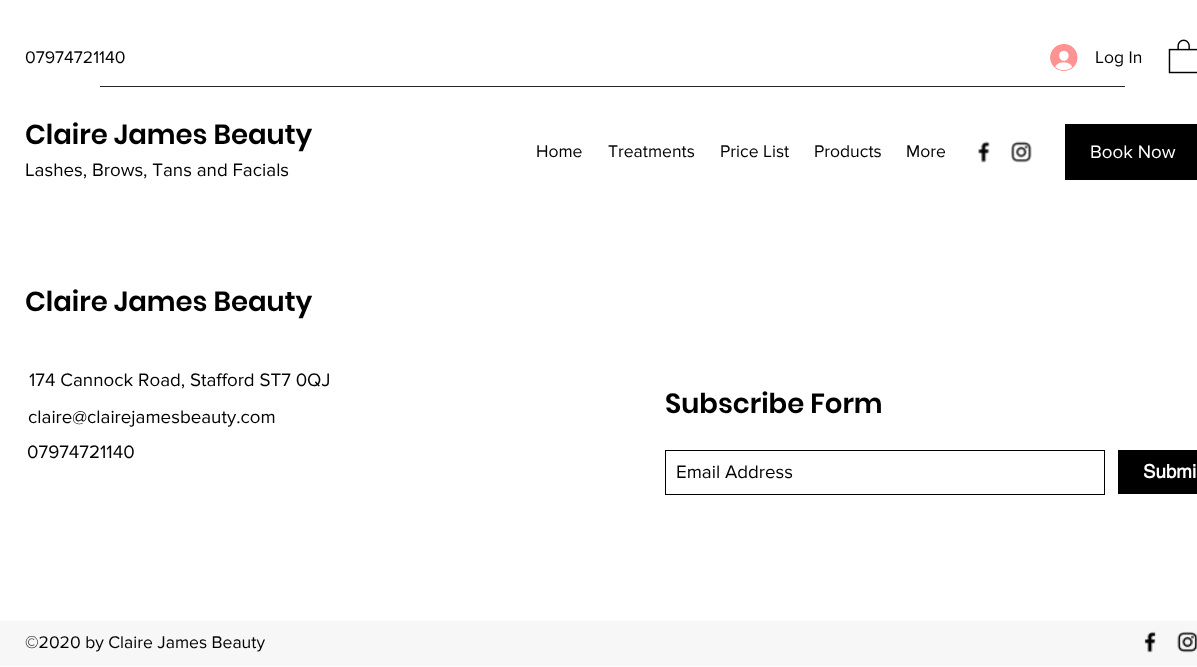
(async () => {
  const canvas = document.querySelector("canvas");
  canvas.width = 1197;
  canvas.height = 667;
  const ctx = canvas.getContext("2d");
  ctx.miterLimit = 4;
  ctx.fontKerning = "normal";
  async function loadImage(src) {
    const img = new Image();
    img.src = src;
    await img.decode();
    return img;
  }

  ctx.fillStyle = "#ffffff";
  ctx.fillRect(0, 0, 1197, 667);
  ctx.drawImage(await loadImage("img/1.png"), 1050, 44, 28, 27);
  ctx.drawImage(await loadImage("img/2.png"), 1168, 39, 29, 35);
  ctx.fillStyle = "#262626";
  ctx.fillRect(100, 86, 1025, 1);
  ctx.drawImage(await loadImage("img/3.png"), 978, 141, 12, 22);
  ctx.drawImage(await loadImage("img/4.png"), 1011, 141, 21, 22);
  ctx.fillStyle = "#000000";
  ctx.fillRect(1065, 124, 132, 56);
  ctx.strokeStyle = "#000000";
  ctx.strokeRect(665.5, 450.5, 439, 44);
  ctx.fillRect(1118, 450, 79, 44);
  ctx.fillStyle = "#f7f7f7";
  ctx.fillRect(0, 621, 1197, 45);
  ctx.drawImage(await loadImage("img/5.png"), 1144, 631, 12, 22);
  ctx.drawImage(await loadImage("img/6.png"), 1177, 631, 20, 22);
  ctx.font = "17.5px 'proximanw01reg'";
  ctx.fillStyle = "#000000";
  ctx.fillText("07974721140", 25, 63);
  ctx.fillText("Log In", 1095, 63);
  ctx.font = "600 27.5px Poppins";
  ctx.fillText("Claire James Beauty", 25, 144);
  ctx.font = "18.75px 'proximanw01reg'";
  ctx.fillText("Lashes, Brows, Tans and Facials", 25, 176);
  ctx.font = "17.5px 'proximanw01reg'";
  for (const [text, x, y] of [
    ["Home", 536, 157],
    ["Treatments", 608, 157],
    ["Price List", 720, 157],
    ["Products", 814, 157],
    ["More", 906, 157],
  ]) {
    ctx.fillText(text, x, y);
  }
  ctx.font = "18.75px 'proximanw01reg'";
  ctx.fillStyle = "#ffffff";
  ctx.fillText("Book Now", 1090, 158);
  ctx.font = "600 27.5px Poppins";
  ctx.fillStyle = "#000000";
  ctx.fillText("Claire James Beauty", 25, 311);
  ctx.font = "18.75px 'proximanw01reg'";
  ctx.fillText("174 Cannock Road, Stafford ST7 0QJ", 29, 386);
  ctx.fillText("claire@clairejamesbeauty.com", 28, 423);
  ctx.font = "600 27.5px Poppins";
  ctx.fillText("Subscribe Form", 665, 413);
  ctx.font = "18.75px 'proximanw01reg'";
  ctx.fillText("Email Address", 676, 478);
  ctx.font = "bold 18.75px helvetica";
  ctx.fillStyle = "#ffffff";
  ctx.fillText("Submi", 1143, 478);
  ctx.font = "18.75px 'proximanw01reg'";
  ctx.fillStyle = "#000000";
  ctx.fillText("07974721140", 27, 458);
  ctx.font = "17.5px 'proximanw01reg'";
  ctx.fillText("©2020 by Claire James Beauty", 25, 648);
})();
